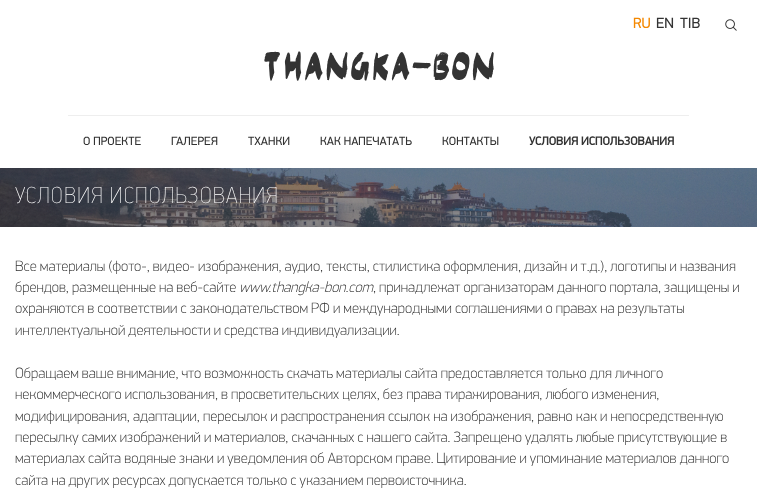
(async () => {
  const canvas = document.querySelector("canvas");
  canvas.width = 757;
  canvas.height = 503;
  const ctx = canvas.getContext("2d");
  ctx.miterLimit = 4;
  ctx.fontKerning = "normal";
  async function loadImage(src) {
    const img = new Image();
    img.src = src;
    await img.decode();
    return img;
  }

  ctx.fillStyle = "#ffffff";
  ctx.fillRect(0, 0, 757, 503);
  ctx.drawImage(await loadImage("img/1.png"), 725, 19, 12, 12);
  ctx.fillStyle = "#eeeeee";
  ctx.fillRect(68, 115, 621, 1);
  ctx.drawImage(await loadImage("img/2.png"), 0, 168, 757, 59);
  ctx.font = "15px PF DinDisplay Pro";
  ctx.fillStyle = "#f48801";
  ctx.fillText("RU", 633, 28);
  ctx.fillStyle = "#333333";
  ctx.fillText("EN", 656, 28);
  ctx.fillText("TIB", 680, 28);
  ctx.font = "38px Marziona";
  ctx.fillText("THANGKA-BON", 262, 80);
  ctx.font = "12px PF DinDisplay Pro";
  for (const [text, x, y] of [
    ["О ПРОЕКТЕ", 83, 145],
    ["ГАЛЕРЕЯ", 171, 145],
    ["ТХАНКИ", 248, 145],
    ["КАК НАПЕЧАТАТЬ", 320, 145],
    ["КОНТАКТЫ", 442, 145],
  ]) {
    ctx.fillText(text, x, y);
  }
  ctx.font = "bold 12px PF DinDisplay Pro";
  ctx.fillText("УСЛОВИЯ ИСПОЛЬЗОВАНИЯ", 529, 145);
  ctx.letterSpacing = "1px";
  ctx.font = "100 26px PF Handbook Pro";
  ctx.fillStyle = "#ffffff";
  ctx.fillText("УСЛОВИЯ ИСПОЛЬЗОВАНИЯ", 15, 203);
  ctx.letterSpacing = "0px";
  ctx.font = "100 15px PF DinDisplay Pro";
  ctx.fillStyle = "#333333";
  ctx.fillText("Все материалы (фото-, видео- изображения, аудио, тексты, стилистика оформления, дизайн и т.д.), логотипы и названия", 15, 271);
  ctx.fillText("брендов, размещенные на веб-сайте", 15, 292);
  ctx.font = "italic 100 15px PF DinDisplay Pro";
  ctx.fillText("www.thangka-bon.com", 239, 292);
  ctx.font = "100 15px PF DinDisplay Pro";
  for (const [text, x, y] of [
    [", принадлежат организаторам данного портала, защищены и", 373, 292],
    ["охраняются в соответствии с законодательством РФ и международными соглашениями о правах на результаты", 15, 313],
    ["интеллектуальной деятельности и средства индивидуализации.", 15, 335],
    ["Обращаем ваше внимание, что возможность скачать материалы сайта предоставляется только для личного", 15, 378],
    ["некоммерческого использования, в просветительских целях, без права тиражирования, любого изменения,", 15, 399],
    ["модифицирования, адаптации, пересылок и распространения ссылок на изображения, равно как и непосредственную", 15, 421],
    ["пересылку самих изображений и материалов, скачанных с нашего сайта. Запрещено удалять любые присутствующие в", 15, 442],
    ["материалах сайта водяные знаки и уведомления об Авторском праве. Цитирование и упоминание материалов данного", 15, 463],
    ["сайта на других ресурсах допускается только с указанием первоисточника.", 15, 485],
  ]) {
    ctx.fillText(text, x, y);
  }
})();
